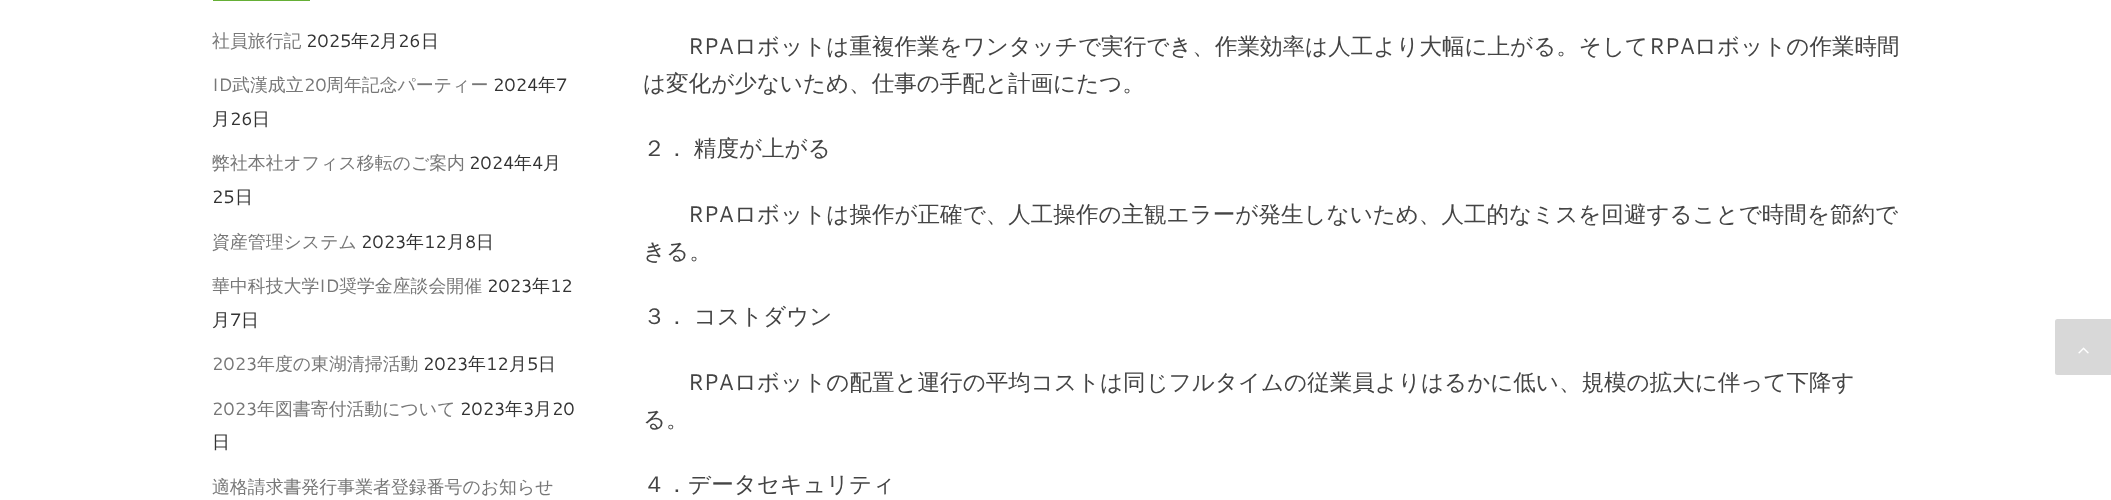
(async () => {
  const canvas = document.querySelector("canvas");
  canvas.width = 2111;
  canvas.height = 500;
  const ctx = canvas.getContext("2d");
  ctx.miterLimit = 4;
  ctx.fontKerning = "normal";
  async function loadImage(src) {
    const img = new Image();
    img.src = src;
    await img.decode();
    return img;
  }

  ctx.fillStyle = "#ffffff";
  ctx.fillRect(0, 0, 2111, 500);
  ctx.fillStyle = "#65af36";
  ctx.fillRect(213, 0, 97, 1);
  ctx.fillStyle = "#d8d8d8";
  ctx.beginPath();
  ctx.roundRect(2055, 319, 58, 56, 2.5);
  ctx.fill();
  ctx.drawImage(await loadImage("img/1.png"), 2078, 347, 11, 7);
  ctx.font = "500 17.9px WenQuanYi Zen Hei";
  ctx.fillStyle = "#777777";
  ctx.fillText("社員旅行記", 212, 47);
  ctx.font = "17.9px Cantarell";
  ctx.fillStyle = "#333333";
  ctx.fillText("2025", 306, 47);
  ctx.font = "500 17.9px WenQuanYi Zen Hei";
  ctx.fillText("年", 351, 47);
  ctx.font = "17.9px Cantarell";
  ctx.fillText("2", 369, 47);
  ctx.font = "500 17.9px WenQuanYi Zen Hei";
  ctx.fillText("月", 380, 47);
  ctx.font = "17.9px Cantarell";
  ctx.fillText("26", 398, 47);
  ctx.font = "500 17.9px WenQuanYi Zen Hei";
  ctx.fillText("日", 421, 47);
  ctx.font = "17.9px Cantarell";
  ctx.fillStyle = "#777777";
  ctx.fillText("ID", 212, 91);
  ctx.font = "500 17.9px WenQuanYi Zen Hei";
  ctx.fillText("武漢成立", 232, 91);
  ctx.font = "17.9px Cantarell";
  ctx.fillText("20", 304, 91);
  ctx.font = "500 17.9px WenQuanYi Zen Hei";
  ctx.fillText("周年記念パーティー", 326, 91);
  ctx.font = "17.9px Cantarell";
  ctx.fillStyle = "#333333";
  ctx.fillText("2024", 493, 91);
  ctx.font = "500 17.9px WenQuanYi Zen Hei";
  ctx.fillText("年", 538, 91);
  ctx.font = "17.9px Cantarell";
  ctx.fillText("7", 556, 91);
  ctx.font = "500 17.9px WenQuanYi Zen Hei";
  ctx.fillText("月", 212, 125);
  ctx.font = "17.9px Cantarell";
  ctx.fillText("26", 230, 125);
  ctx.font = "500 17.9px WenQuanYi Zen Hei";
  ctx.fillText("日", 252, 125);
  ctx.fillStyle = "#777777";
  ctx.fillText("弊社本社オフィス移転のご案内", 212, 169);
  ctx.font = "17.9px Cantarell";
  ctx.fillStyle = "#333333";
  ctx.fillText("2024", 469, 169);
  ctx.font = "500 17.9px WenQuanYi Zen Hei";
  ctx.fillText("年", 514, 169);
  ctx.font = "17.9px Cantarell";
  ctx.fillText("4", 532, 169);
  ctx.font = "500 17.9px WenQuanYi Zen Hei";
  ctx.fillText("月", 543, 169);
  ctx.font = "17.9px Cantarell";
  ctx.fillText("25", 212, 203);
  ctx.font = "500 17.9px WenQuanYi Zen Hei";
  ctx.fillText("日", 235, 203);
  ctx.fillStyle = "#777777";
  ctx.fillText("資産管理システム", 212, 248);
  ctx.font = "17.9px Cantarell";
  ctx.fillStyle = "#333333";
  ctx.fillText("2023", 361, 248);
  ctx.font = "500 17.9px WenQuanYi Zen Hei";
  ctx.fillText("年", 406, 248);
  ctx.font = "17.9px Cantarell";
  ctx.fillText("12", 424, 248);
  ctx.font = "500 17.9px WenQuanYi Zen Hei";
  ctx.fillText("月", 447, 248);
  ctx.font = "17.9px Cantarell";
  ctx.fillText("8", 465, 248);
  ctx.font = "500 17.9px WenQuanYi Zen Hei";
  ctx.fillText("日", 476, 248);
  ctx.fillStyle = "#777777";
  ctx.fillText("華中科技大学", 212, 292);
  ctx.font = "17.9px Cantarell";
  ctx.fillText("ID", 319, 292);
  ctx.font = "500 17.9px WenQuanYi Zen Hei";
  ctx.fillText("奨学金座談会開催", 339, 292);
  ctx.font = "17.9px Cantarell";
  ctx.fillStyle = "#333333";
  ctx.fillText("2023", 487, 292);
  ctx.font = "500 17.9px WenQuanYi Zen Hei";
  ctx.fillText("年", 532, 292);
  ctx.font = "17.9px Cantarell";
  ctx.fillText("12", 550, 292);
  ctx.font = "500 17.9px WenQuanYi Zen Hei";
  ctx.fillText("月", 212, 326);
  ctx.font = "17.9px Cantarell";
  ctx.fillText("7", 230, 326);
  ctx.font = "500 17.9px WenQuanYi Zen Hei";
  ctx.fillText("日", 241, 326);
  ctx.font = "17.9px Cantarell";
  ctx.fillStyle = "#777777";
  ctx.fillText("2023", 212, 370);
  ctx.font = "500 17.9px WenQuanYi Zen Hei";
  ctx.fillText("年度の東湖清掃活動", 257, 370);
  ctx.font = "17.9px Cantarell";
  ctx.fillStyle = "#333333";
  ctx.fillText("2023", 423, 370);
  ctx.font = "500 17.9px WenQuanYi Zen Hei";
  ctx.fillText("年", 468, 370);
  ctx.font = "17.9px Cantarell";
  ctx.fillText("12", 486, 370);
  ctx.font = "500 17.9px WenQuanYi Zen Hei";
  ctx.fillText("月", 509, 370);
  ctx.font = "17.9px Cantarell";
  ctx.fillText("5", 527, 370);
  ctx.font = "500 17.9px WenQuanYi Zen Hei";
  ctx.fillText("日", 538, 370);
  ctx.font = "17.9px Cantarell";
  ctx.fillStyle = "#777777";
  ctx.fillText("2023", 212, 415);
  ctx.font = "500 17.9px WenQuanYi Zen Hei";
  ctx.fillText("年図書寄付活動について", 257, 415);
  ctx.font = "17.9px Cantarell";
  ctx.fillStyle = "#333333";
  ctx.fillText("2023", 460, 415);
  ctx.font = "500 17.9px WenQuanYi Zen Hei";
  ctx.fillText("年", 505, 415);
  ctx.font = "17.9px Cantarell";
  ctx.fillText("3", 523, 415);
  ctx.font = "500 17.9px WenQuanYi Zen Hei";
  ctx.fillText("月", 534, 415);
  ctx.font = "17.9px Cantarell";
  ctx.fillText("20", 552, 415);
  ctx.font = "500 17.9px WenQuanYi Zen Hei";
  ctx.fillText("日", 212, 448);
  ctx.fillStyle = "#777777";
  ctx.fillText("適格請求書発行事業者登録番号のお知らせ", 212, 493);
  ctx.font = "22.55px Cantarell";
  ctx.fillStyle = "#444444";
  ctx.fillText("RPA", 688, 54);
  ctx.font = "500 22.55px WenQuanYi Zen Hei";
  ctx.fillText("ロボットは重複作業をワンタッチで実行でき、作業効率は人工より大幅に上がる。そして", 734, 54);
  ctx.font = "22.55px Cantarell";
  ctx.fillText("RPA", 1649, 54);
  ctx.font = "500 22.55px WenQuanYi Zen Hei";
  ctx.fillText("ロボットの作業時間", 1694, 54);
  ctx.fillText("は変化が少ないため、仕事の手配と計画にたつ。", 643, 91);
  ctx.wordSpacing = "-1px";
  ctx.fillText("２． 精度が上がる", 643, 156);
  ctx.wordSpacing = "0px";
  ctx.font = "22.55px Cantarell";
  ctx.fillText("RPA", 688, 222);
  ctx.font = "500 22.55px WenQuanYi Zen Hei";
  ctx.fillText("ロボットは操作が正確で、人工操作の主観エラーが発生しないため、人工的なミスを回避することで時間を節約で", 734, 222);
  ctx.fillText("きる。", 643, 259);
  ctx.wordSpacing = "-1px";
  ctx.fillText("３． コストダウン", 643, 324);
  ctx.wordSpacing = "0px";
  ctx.font = "22.55px Cantarell";
  ctx.fillText("RPA", 688, 390);
  ctx.font = "500 22.55px WenQuanYi Zen Hei";
  for (const [text, x, y] of [
    ["ロボットの配置と運行の平均コストは同じフルタイムの従業員よりはるかに低い、規模の拡大に伴って下降す", 734, 390],
    ["る。", 643, 427],
    ["４．データセキュリティ", 643, 492],
  ]) {
    ctx.fillText(text, x, y);
  }
})();
